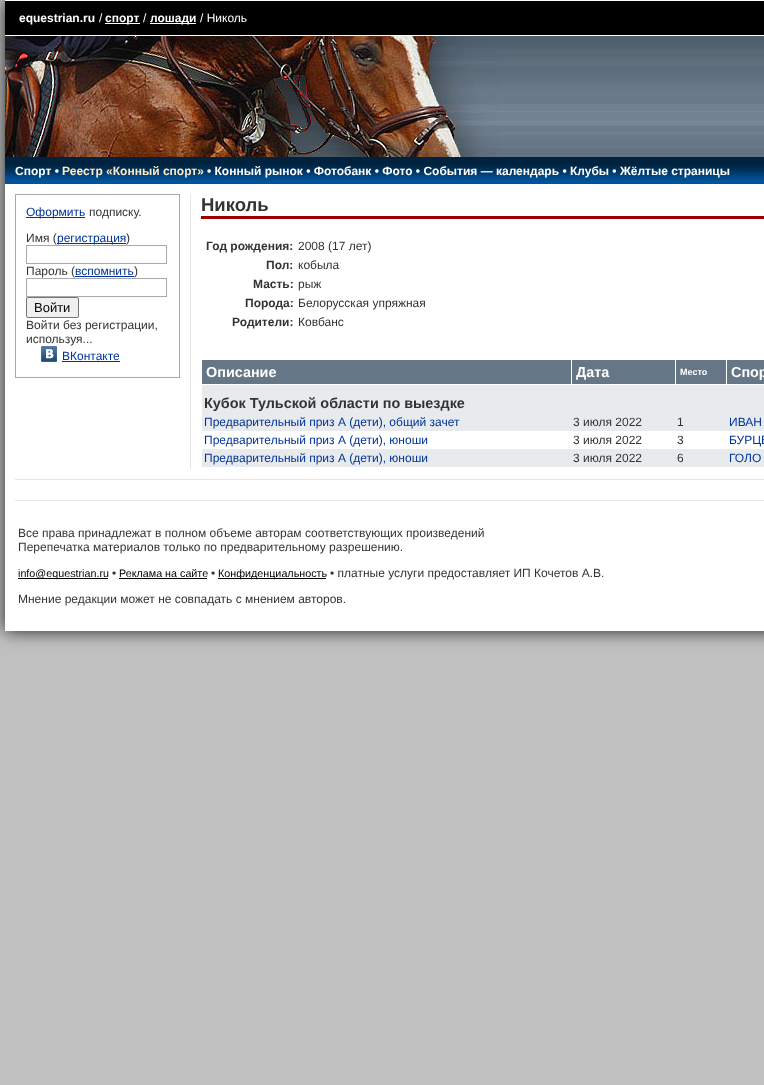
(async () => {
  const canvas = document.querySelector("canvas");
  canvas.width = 764;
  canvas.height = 1085;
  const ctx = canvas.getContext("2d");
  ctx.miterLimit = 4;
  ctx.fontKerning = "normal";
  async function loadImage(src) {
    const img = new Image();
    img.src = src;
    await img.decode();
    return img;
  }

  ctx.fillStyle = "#c0c0c0";
  ctx.fillRect(0, 0, 764, 1085);
  ctx.fillStyle = "#212121";
  ctx.filter = "blur(8.5px)";
  ctx.beginPath();
  ctx.rect(5, 0, 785, 631);
  ctx.fill();
  ctx.filter = "none";
  for (const [x, y, w, h, color] of [
    [5, 1, 759, 34, "#000000"],
    [5, 0, 759, 1, "#ffffff"],
    [5, 35, 759, 1, "#ffffff"],
    [105, 23, 35, 1, "#ffffff"],
    [150, 23, 46, 1, "#ffffff"],
  ]) {
    ctx.fillStyle = color;
    ctx.fillRect(x, y, w, h);
  }
  ctx.drawImage(await loadImage("img/1.png"), 499, 36, 265, 121);
  ctx.drawImage(await loadImage("img/2.png"), 5, 36, 494, 121);
  ctx.drawImage(await loadImage("img/3.png"), 5, 157, 759, 27);
  ctx.fillRect(5, 184, 759, 447);
  ctx.fillStyle = "#e5e5e5";
  ctx.fillRect(190, 194, 1, 275);
  ctx.strokeStyle = "#a9a9a9";
  ctx.strokeRect(15.5, 194.5, 164, 183);
  ctx.fillStyle = "#003399";
  ctx.fillRect(26, 217, 59, 1);
  ctx.fillRect(57, 243, 69, 1);
  ctx.strokeRect(26.5, 245.5, 140, 18);
  ctx.fillRect(75, 276, 59, 1);
  ctx.strokeRect(26.5, 278.5, 140, 18);
  ctx.fillStyle = "#efefef";
  ctx.beginPath();
  ctx.roundRect(26.5, 297.5, 52, 20, 1.5);
  ctx.fill();
  ctx.strokeStyle = "#767676";
  ctx.stroke();
  ctx.drawImage(await loadImage("img/4.png"), 41, 346, 16, 16);
  for (const [x, y, w, h, color] of [
    [62, 361, 58, 1, "#003399"],
    [201, 216, 563, 3, "#990000"],
    [202, 360, 369, 24, "#657686"],
    [572, 360, 103, 24, "#657686"],
    [676, 360, 50, 24, "#657686"],
    [727, 360, 37, 24, "#657686"],
    [202, 385, 562, 46, "#e8ebed"],
    [202, 449, 562, 18, "#e8ebed"],
    [15, 479, 749, 1, "#e5e5e5"],
    [15, 500, 749, 1, "#e5e5e5"],
    [18, 578, 90, 1, "#000000"],
    [119, 578, 88, 1, "#000000"],
    [218, 578, 108, 1, "#000000"],
  ]) {
    ctx.fillStyle = color;
    ctx.fillRect(x, y, w, h);
  }
  ctx.font = "bold 12px Liberation Sans";
  ctx.fillStyle = "#ffffff";
  ctx.fillText("equestrian.ru", 19, 22);
  ctx.font = "12px Liberation Sans";
  ctx.fillText("/", 99, 22);
  ctx.font = "bold 12px Liberation Sans";
  ctx.fillText("спорт", 105, 22);
  ctx.font = "12px Liberation Sans";
  ctx.fillText("/", 143, 22);
  ctx.font = "bold 12px Liberation Sans";
  ctx.fillText("лошади", 150, 22);
  ctx.font = "12px Liberation Sans";
  ctx.fillText("/ Николь", 200, 22);
  ctx.font = "bold 12px Liberation Sans";
  ctx.fillText("Спорт •", 15, 175);
  ctx.fillStyle = "#feeac7";
  ctx.fillText("Реестр «Конный спорт»", 62, 175);
  ctx.fillStyle = "#ffffff";
  ctx.fillText("• Конный рынок • Фотобанк • Фото • События — календарь • Клубы • Жёлтые страницы", 207, 175);
  ctx.font = "12px Liberation Sans";
  ctx.fillStyle = "#003399";
  ctx.fillText("Оформить", 26, 216);
  ctx.fillStyle = "#333333";
  ctx.fillText("подписку.", 89, 216);
  ctx.fillText("Имя (", 26, 242);
  ctx.fillStyle = "#003399";
  ctx.fillText("регистрация", 57, 242);
  ctx.fillStyle = "#333333";
  ctx.fillText(")", 126, 242);
  ctx.fillText("Пароль (", 26, 275);
  ctx.fillStyle = "#003399";
  ctx.fillText("вспомнить", 75, 275);
  ctx.fillStyle = "#333333";
  ctx.fillText(")", 134, 275);
  ctx.font = "13px Liberation Sans";
  ctx.fillStyle = "#000000";
  ctx.fillText("Войти", 34, 312);
  ctx.font = "12px Liberation Sans";
  ctx.fillStyle = "#333333";
  ctx.fillText("Войти без регистрации,", 26, 329);
  ctx.fillText("используя...", 26, 343);
  ctx.fillStyle = "#003399";
  ctx.fillText("ВКонтакте", 62, 360);
  ctx.font = "bold 18.5px Liberation Sans";
  ctx.fillStyle = "#333333";
  ctx.fillText("Николь", 201, 211);
  ctx.font = "bold 12px Liberation Sans";
  ctx.fillText("Год рождения:", 206, 250);
  ctx.font = "12px Liberation Sans";
  ctx.fillText("2008 (17 лет)", 298, 250);
  ctx.font = "bold 12px Liberation Sans";
  ctx.fillText("Пол:", 266, 269);
  ctx.font = "12px Liberation Sans";
  ctx.fillText("кобыла", 298, 269);
  ctx.font = "bold 12px Liberation Sans";
  ctx.fillText("Масть:", 253, 288);
  ctx.font = "12px Liberation Sans";
  ctx.fillText("рыж", 298, 288);
  ctx.font = "bold 12px Liberation Sans";
  ctx.fillText("Порода:", 245, 307);
  ctx.font = "12px Liberation Sans";
  ctx.fillText("Белорусская упряжная", 298, 307);
  ctx.font = "bold 12px Liberation Sans";
  ctx.fillText("Родители:", 232, 326);
  ctx.font = "12px Liberation Sans";
  ctx.fillText("Ковбанс", 298, 326);
  ctx.font = "bold 14.4px Liberation Sans";
  ctx.fillStyle = "#ffffff";
  ctx.fillText("Описание", 206, 377);
  ctx.fillText("Дата", 576, 377);
  ctx.font = "bold 9px Liberation Sans";
  ctx.fillText("Место", 680, 375);
  ctx.font = "bold 14.4px Liberation Sans";
  ctx.fillText("Спор", 731, 377);
  ctx.fillStyle = "#333333";
  ctx.fillText("Кубок Тульской области по выездке", 204, 408);
  ctx.font = "12px Liberation Sans";
  ctx.fillStyle = "#003399";
  ctx.fillText("Предварительный приз А (дети), общий зачет", 204, 426);
  ctx.fillStyle = "#333333";
  ctx.fillText("3 июля 2022", 573, 426);
  ctx.fillText("1", 677, 426);
  ctx.fillStyle = "#003399";
  ctx.fillText("ИВАН", 729, 426);
  ctx.fillText("Предварительный приз А (дети), юноши", 204, 444);
  ctx.fillStyle = "#333333";
  ctx.fillText("3 июля 2022", 573, 444);
  ctx.fillText("3", 677, 444);
  ctx.fillStyle = "#003399";
  ctx.fillText("БУРЦЕ", 729, 444);
  ctx.fillText("Предварительный приз А (дети), юноши", 204, 462);
  ctx.fillStyle = "#333333";
  ctx.fillText("3 июля 2022", 573, 462);
  ctx.fillText("6", 677, 462);
  ctx.fillStyle = "#003399";
  ctx.fillText("ГОЛО", 729, 462);
  ctx.fillStyle = "#333333";
  ctx.fillText("Все права принадлежат в полном объеме авторам соответствующих произведений", 18, 537);
  ctx.fillText("Перепечатка материалов только по предварительному разрешению.", 18, 551);
  ctx.font = "10.75px Liberation Sans";
  ctx.fillStyle = "#000000";
  ctx.fillText("info@equestrian.ru", 18, 577);
  ctx.font = "12px Liberation Sans";
  ctx.fillStyle = "#333333";
  ctx.fillText("•", 112, 577);
  ctx.font = "10.75px Liberation Sans";
  ctx.fillStyle = "#000000";
  ctx.fillText("Реклама на сайте", 119, 577);
  ctx.font = "12px Liberation Sans";
  ctx.fillStyle = "#333333";
  ctx.fillText("•", 211, 577);
  ctx.font = "10.75px Liberation Sans";
  ctx.fillStyle = "#000000";
  ctx.fillText("Конфиденциальность", 218, 577);
  ctx.font = "12px Liberation Sans";
  ctx.fillStyle = "#333333";
  ctx.fillText("• платные услуги предоставляет ИП Кочетов А.В.", 330, 577);
  ctx.fillText("Мнение редакции может не совпадать с мнением авторов.", 18, 603);
})();
